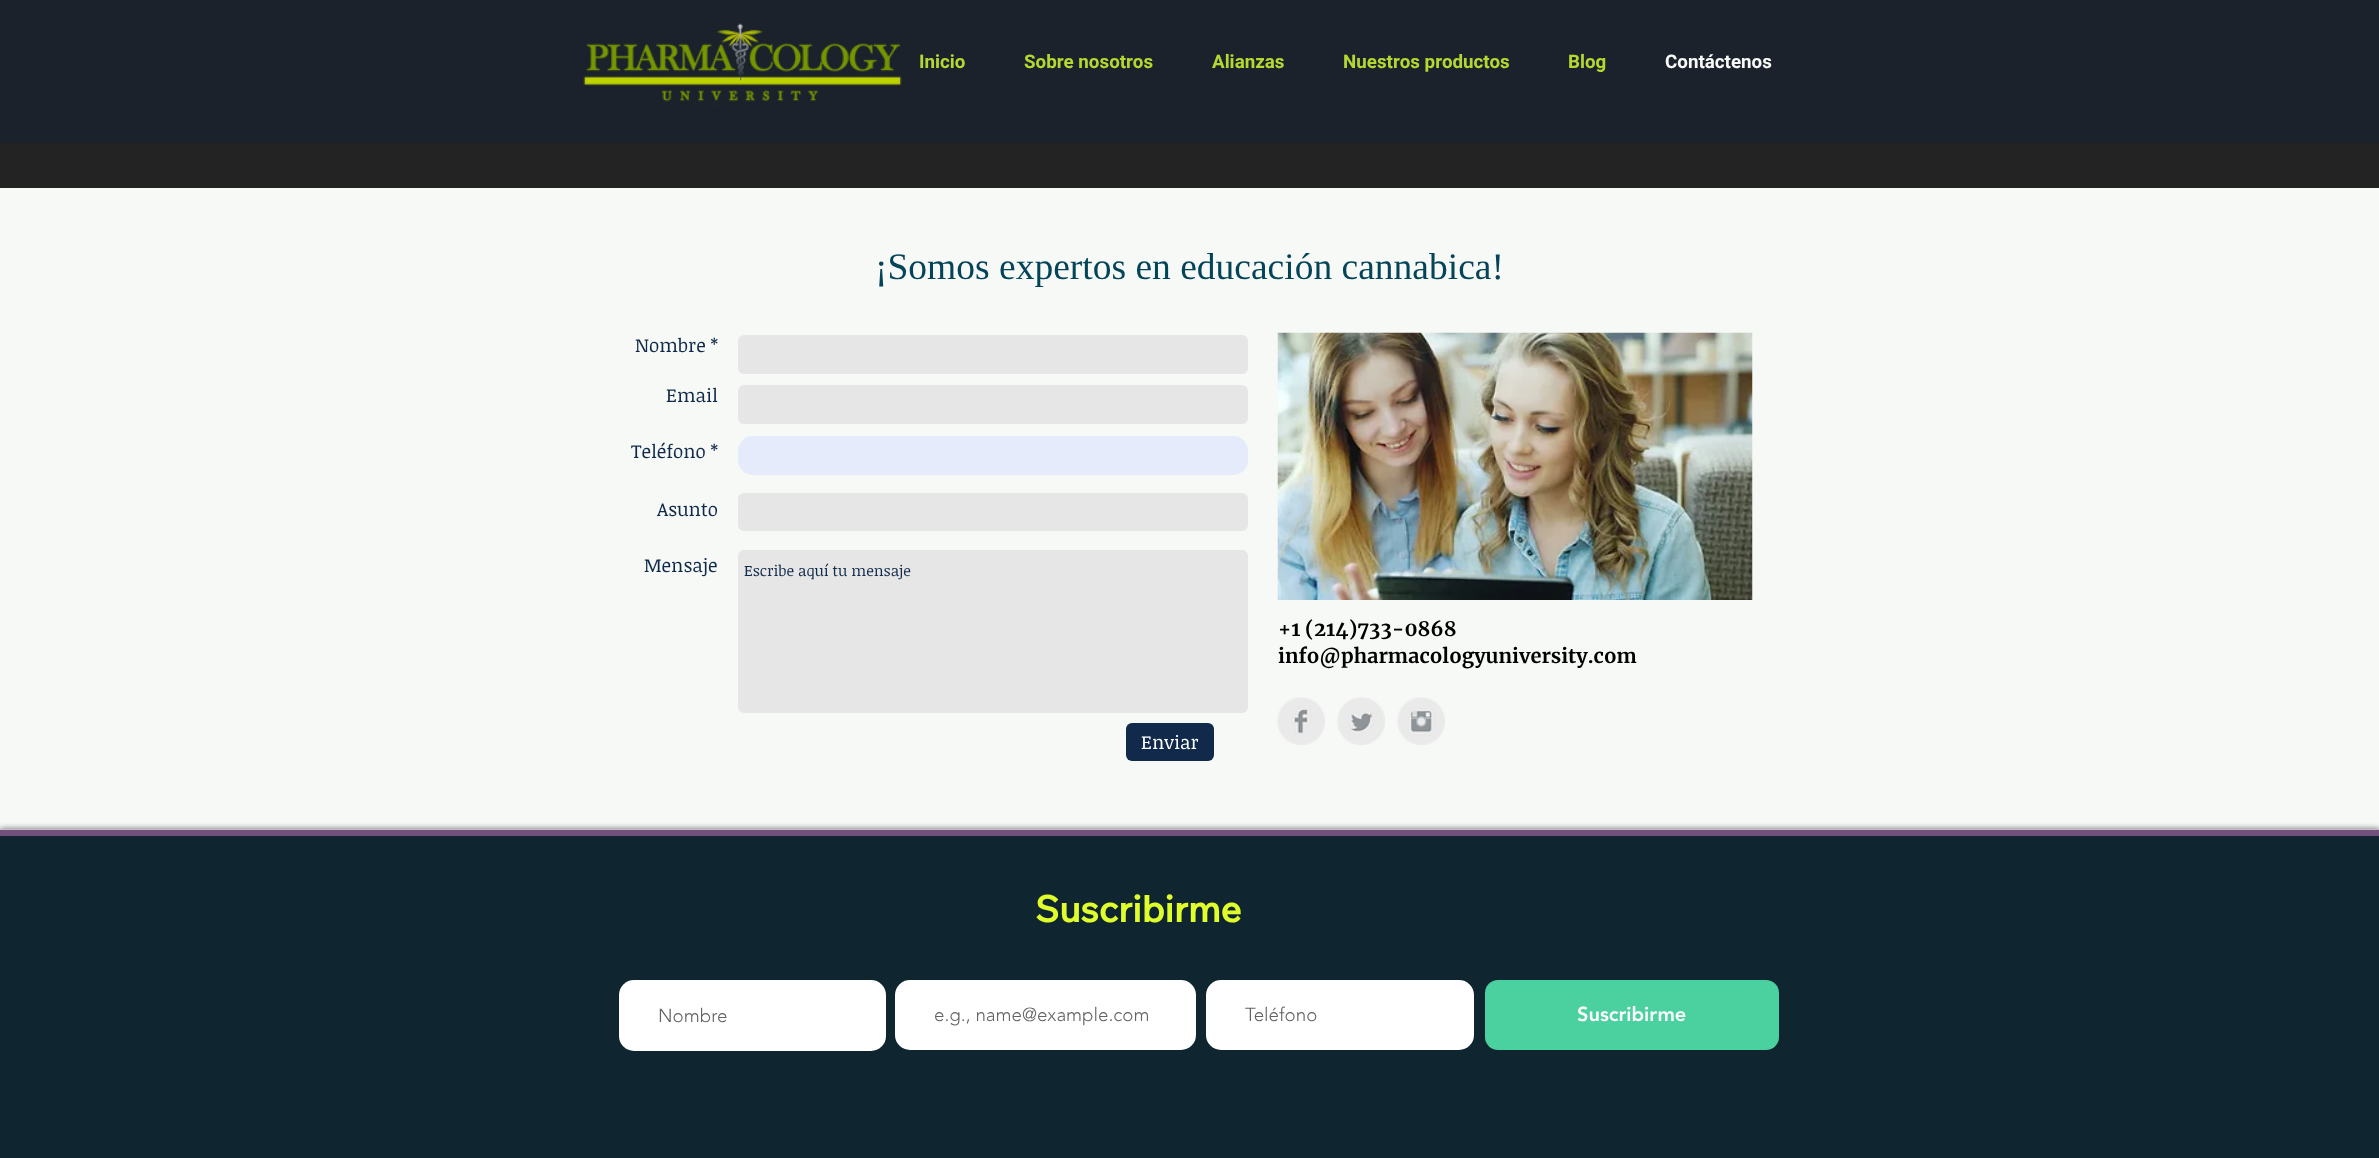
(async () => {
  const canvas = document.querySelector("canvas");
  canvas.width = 2379;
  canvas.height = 1158;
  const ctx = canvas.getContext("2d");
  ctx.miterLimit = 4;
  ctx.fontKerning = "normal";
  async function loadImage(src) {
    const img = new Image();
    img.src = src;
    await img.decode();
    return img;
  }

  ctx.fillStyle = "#f6f9f5";
  ctx.fillRect(0, 0, 2379, 1158);
  ctx.fillStyle = "#1b222c";
  ctx.fillRect(0, 0, 2379, 143);
  ctx.drawImage(await loadImage("img/1.png"), 583, 23, 319, 83);
  ctx.fillStyle = "#242323";
  ctx.fillRect(0, 143, 2379, 45);
  ctx.fillStyle = "#e6e6e6";
  ctx.beginPath();
  ctx.roundRect(738, 335, 510, 39, 6);
  ctx.fill();
  ctx.beginPath();
  ctx.roundRect(738, 385, 510, 39, 6);
  ctx.fill();
  ctx.fillStyle = "#e5ebfa";
  ctx.beginPath();
  ctx.roundRect(738, 436, 510, 39, 15);
  ctx.fill();
  ctx.fillStyle = "#e6e6e6";
  ctx.beginPath();
  ctx.roundRect(738, 493, 510, 38, 6);
  ctx.fill();
  ctx.beginPath();
  ctx.roundRect(738, 550, 510, 163, 6);
  ctx.fill();
  ctx.fillStyle = "#112a4b";
  ctx.beginPath();
  ctx.roundRect(1126, 723, 88, 38, 6);
  ctx.fill();
  ctx.drawImage(await loadImage("img/2.png"), 1277, 332, 476, 268);
  ctx.drawImage(await loadImage("img/3.png"), 1277, 697, 48, 48);
  ctx.drawImage(await loadImage("img/4.png"), 1337, 697, 48, 48);
  ctx.drawImage(await loadImage("img/5.png"), 1397, 697, 48, 48);
  ctx.fillStyle = "rgba(0, 0, 0, 0.6)";
  ctx.filter = "blur(3px)";
  ctx.beginPath();
  ctx.rect(0, 829, 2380, 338);
  ctx.fill();
  ctx.filter = "none";
  ctx.fillStyle = "#421651";
  ctx.fillRect(0, 830, 2379, 6);
  ctx.drawImage(await loadImage("img/6.png"), 0, 830, 2379, 6);
  ctx.fillStyle = "#c7bacb";
  ctx.fillRect(0, 829, 2379, 1);
  ctx.fillStyle = "#0f2630";
  ctx.fillRect(0, 836, 2379, 322);
  ctx.fillStyle = "#ffffff";
  ctx.beginPath();
  ctx.roundRect(619, 980, 267, 71, 15);
  ctx.fill();
  ctx.beginPath();
  ctx.roundRect(895, 980, 301, 70, 15);
  ctx.fill();
  ctx.beginPath();
  ctx.roundRect(1206, 980, 268, 70, 15);
  ctx.fill();
  ctx.fillStyle = "#4bd1a0";
  ctx.beginPath();
  ctx.roundRect(1485, 980, 294, 70, 13);
  ctx.fill();
  ctx.font = "bold 18.75px Heebo";
  ctx.fillStyle = "#b5d831";
  for (const [text, x, y] of [
    ["Inicio", 919, 68],
    ["Sobre nosotros", 1024, 68],
    ["Alianzas", 1212, 68],
    ["Nuestros productos", 1343, 68],
    ["Blog", 1568, 68],
  ]) {
    ctx.fillText(text, x, y);
  }
  ctx.fillStyle = "#f6f9f5";
  ctx.fillText("Contáctenos", 1665, 68);
  ctx.font = "37.5px Liberation Serif";
  ctx.fillStyle = "#034459";
  ctx.fillText("¡Somos expertos en educación cannabica!", 875, 279);
  ctx.font = "18.75px Noticia Text";
  ctx.fillStyle = "#112a4b";
  for (const [text, x, y] of [
    ["Nombre *", 635, 352],
    ["Email", 666, 402],
    ["Teléfono *", 631, 458],
    ["Asunto", 657, 516],
    ["Mensaje", 644, 572],
  ]) {
    ctx.fillText(text, x, y);
  }
  ctx.font = "15px Noticia Text";
  ctx.fillText("Escribe aquí tu mensaje", 744, 576);
  ctx.font = "18.75px Noticia Text";
  ctx.fillStyle = "#ffffff";
  ctx.fillText("Enviar", 1141, 749);
  ctx.font = "bold 20px Merriweather";
  ctx.fillStyle = "#000000";
  ctx.fillText("+1 (214)733-0868", 1278, 636);
  ctx.fillText("info@pharmacologyuniversity.com", 1278, 663);
  ctx.font = "bold 36.25px Wix Madefor Text";
  ctx.fillStyle = "#e0fd2c";
  ctx.fillText("Suscribirme", 1035, 922);
  ctx.font = "300 18.75px 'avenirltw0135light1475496'";
  ctx.fillStyle = "#626462";
  for (const [text, x, y] of [
    ["Nombre", 658, 1022],
    ["e.g., name@example.com", 934, 1021],
    ["Teléfono", 1245, 1021],
  ]) {
    ctx.fillText(text, x, y);
  }
  ctx.font = "900 20px 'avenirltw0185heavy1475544'";
  ctx.fillStyle = "#ffffff";
  ctx.fillText("Suscribirme", 1577, 1021);
})();
